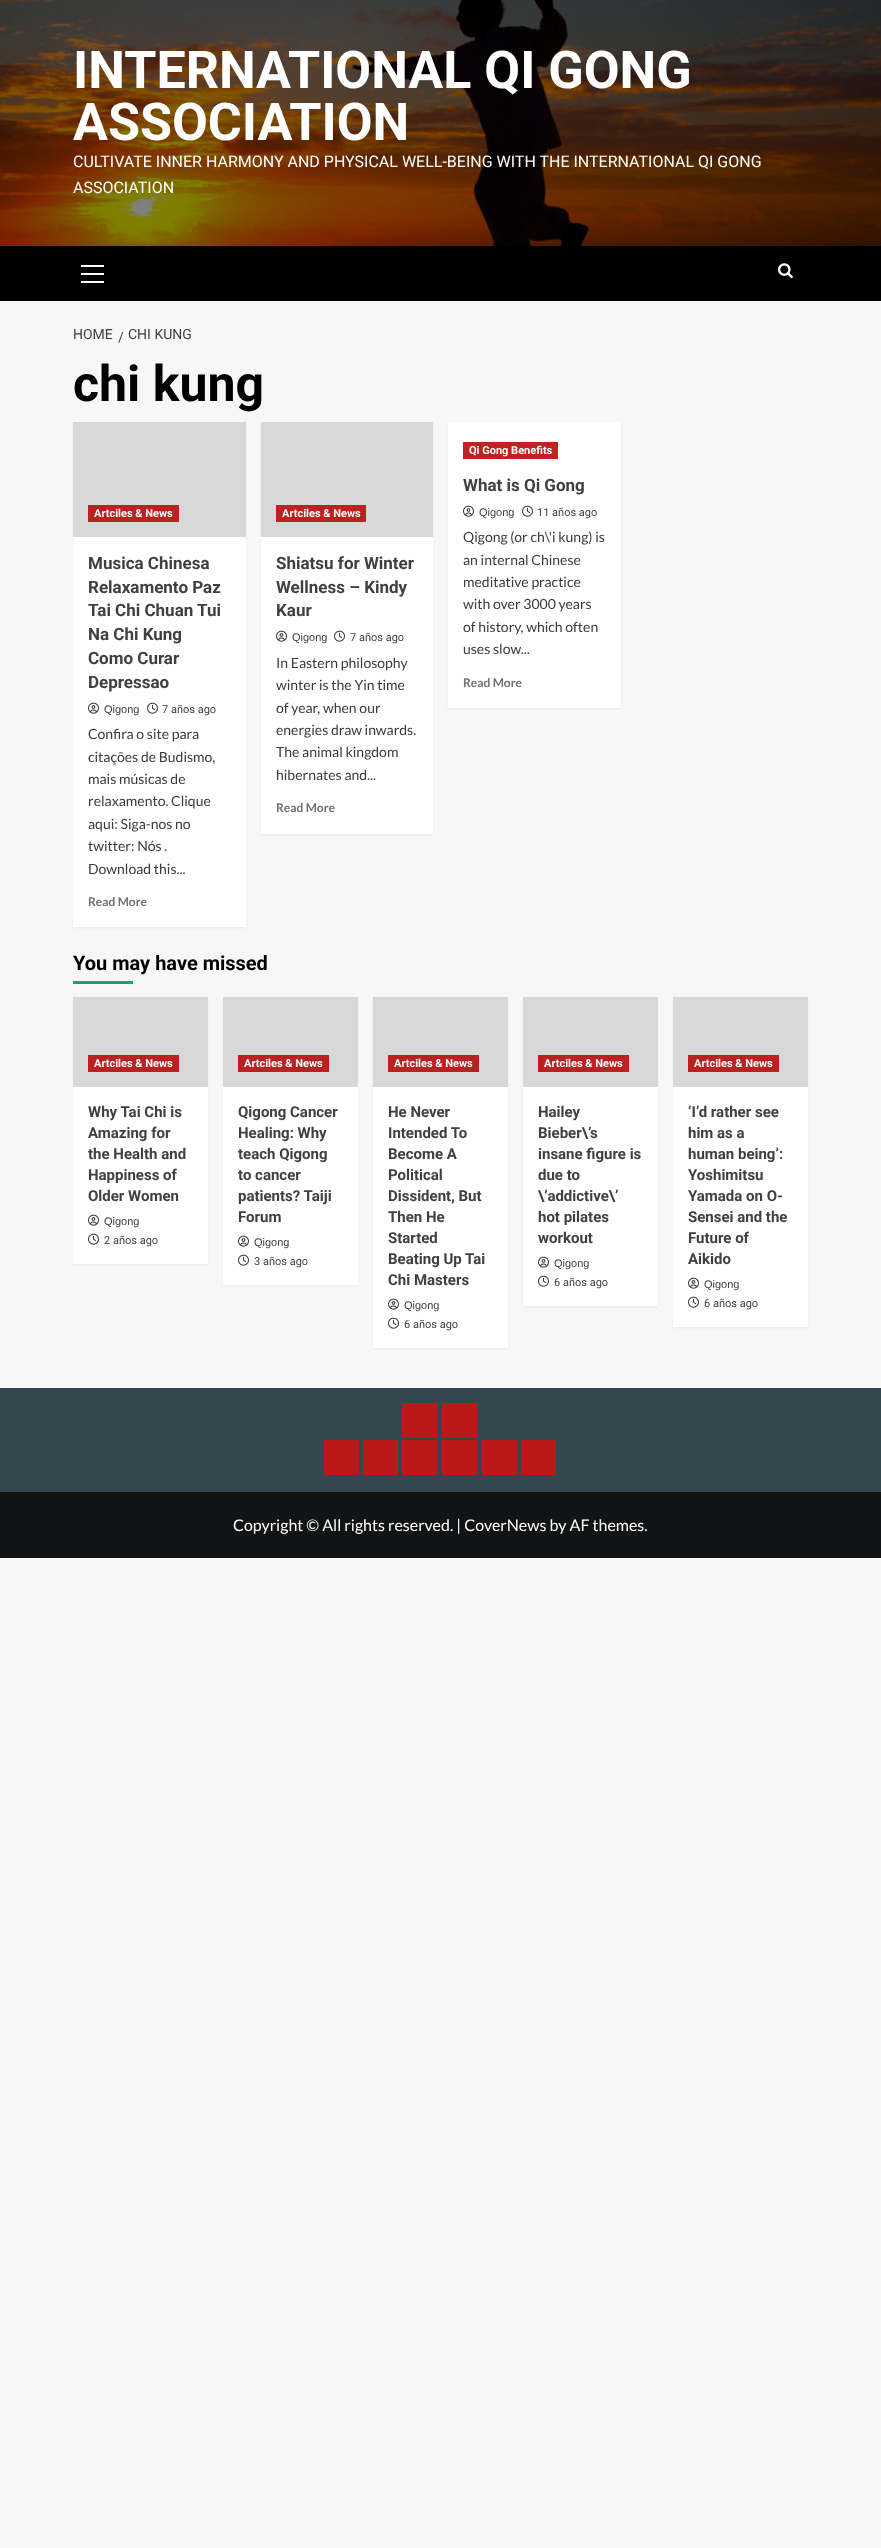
(async () => {
  const canvas = document.querySelector("canvas");
  canvas.width = 881;
  canvas.height = 2548;
  const ctx = canvas.getContext("2d");
  ctx.miterLimit = 4;
  ctx.fontKerning = "normal";
  async function loadImage(src) {
    const img = new Image();
    img.src = src;
    await img.decode();
    return img;
  }

  ctx.fillStyle = "#f7f7f7";
  ctx.fillRect(0, 0, 881, 2548);
  ctx.drawImage(await loadImage("img/1.png"), 0, 0, 881, 246);
  for (const [x, y, w, h, color] of [
    [0, 246, 881, 55, "#000000"],
    [81, 273, 23, 2, "#ffffff"],
    [81, 265, 23, 2, "#ffffff"],
    [81, 281, 23, 2, "#ffffff"],
  ]) {
    ctx.fillStyle = color;
    ctx.fillRect(x, y, w, h);
  }
  ctx.drawImage(await loadImage("img/2.png"), 778, 263, 15, 16);
  ctx.fillStyle = "rgba(0, 0, 0, 0.05)";
  ctx.filter = "blur(1px)";
  ctx.beginPath();
  ctx.rect(73, 423, 173, 505);
  ctx.fill();
  ctx.filter = "none";
  for (const [x, y, w, h, color] of [
    [73, 537, 173, 390, "#ffffff"],
    [73, 422, 173, 115, "#d8d8d8"],
    [88, 505, 91, 17, "#bc2121"],
  ]) {
    ctx.fillStyle = color;
    ctx.fillRect(x, y, w, h);
  }
  ctx.drawImage(await loadImage("img/3.png"), 88, 702, 11, 12);
  ctx.drawImage(await loadImage("img/4.png"), 147, 702, 11, 12);
  ctx.fillStyle = "rgba(0, 0, 0, 0.05)";
  ctx.filter = "blur(1px)";
  ctx.beginPath();
  ctx.rect(261, 423, 172, 412);
  ctx.fill();
  ctx.filter = "none";
  for (const [x, y, w, h, color] of [
    [261, 537, 172, 297, "#ffffff"],
    [261, 422, 172, 115, "#d8d8d8"],
    [276, 505, 90, 17, "#bc2121"],
  ]) {
    ctx.fillStyle = color;
    ctx.fillRect(x, y, w, h);
  }
  ctx.drawImage(await loadImage("img/3.png"), 276, 630, 11, 12);
  ctx.drawImage(await loadImage("img/4.png"), 334, 630, 11, 12);
  ctx.fillStyle = "rgba(0, 0, 0, 0.05)";
  ctx.filter = "blur(1px)";
  ctx.beginPath();
  ctx.rect(448, 423, 173, 286);
  ctx.fill();
  ctx.filter = "none";
  ctx.fillStyle = "#ffffff";
  ctx.fillRect(448, 422, 173, 286);
  ctx.fillStyle = "#be2222";
  ctx.fillRect(463, 442, 95, 17);
  ctx.drawImage(await loadImage("img/3.png"), 463, 505, 11, 12);
  ctx.drawImage(await loadImage("img/4.png"), 522, 505, 11, 12);
  ctx.fillStyle = "#12a86b";
  ctx.fillRect(73, 981, 60, 3);
  ctx.fillStyle = "rgba(0, 0, 0, 0.05)";
  ctx.filter = "blur(1px)";
  ctx.beginPath();
  ctx.rect(73, 998, 135, 267);
  ctx.fill();
  ctx.filter = "none";
  for (const [x, y, w, h, color] of [
    [73, 1087, 135, 177, "#ffffff"],
    [73, 997, 135, 90, "#d8d8d8"],
    [88, 1055, 91, 17, "#bc2121"],
  ]) {
    ctx.fillStyle = color;
    ctx.fillRect(x, y, w, h);
  }
  ctx.drawImage(await loadImage("img/3.png"), 88, 1214, 11, 12);
  ctx.drawImage(await loadImage("img/4.png"), 88, 1233, 11, 12);
  ctx.fillStyle = "rgba(0, 0, 0, 0.05)";
  ctx.filter = "blur(1px)";
  ctx.beginPath();
  ctx.rect(223, 998, 135, 288);
  ctx.fill();
  ctx.filter = "none";
  for (const [x, y, w, h, color] of [
    [223, 1087, 135, 198, "#ffffff"],
    [223, 997, 135, 90, "#d8d8d8"],
    [238, 1055, 91, 17, "#bc2121"],
  ]) {
    ctx.fillStyle = color;
    ctx.fillRect(x, y, w, h);
  }
  ctx.drawImage(await loadImage("img/3.png"), 238, 1235, 11, 12);
  ctx.drawImage(await loadImage("img/4.png"), 238, 1254, 11, 12);
  ctx.fillStyle = "rgba(0, 0, 0, 0.05)";
  ctx.filter = "blur(1px)";
  ctx.beginPath();
  ctx.rect(373, 998, 135, 351);
  ctx.fill();
  ctx.filter = "none";
  for (const [x, y, w, h, color] of [
    [373, 1087, 135, 261, "#ffffff"],
    [373, 997, 135, 90, "#d8d8d8"],
    [388, 1055, 91, 17, "#bc2121"],
  ]) {
    ctx.fillStyle = color;
    ctx.fillRect(x, y, w, h);
  }
  ctx.drawImage(await loadImage("img/3.png"), 388, 1298, 11, 12);
  ctx.drawImage(await loadImage("img/4.png"), 388, 1317, 11, 12);
  ctx.fillStyle = "rgba(0, 0, 0, 0.05)";
  ctx.filter = "blur(1px)";
  ctx.beginPath();
  ctx.rect(523, 998, 135, 309);
  ctx.fill();
  ctx.filter = "none";
  for (const [x, y, w, h, color] of [
    [523, 1087, 135, 219, "#ffffff"],
    [523, 997, 135, 90, "#d8d8d8"],
    [538, 1055, 91, 17, "#bc2121"],
  ]) {
    ctx.fillStyle = color;
    ctx.fillRect(x, y, w, h);
  }
  ctx.drawImage(await loadImage("img/3.png"), 538, 1256, 11, 12);
  ctx.drawImage(await loadImage("img/4.png"), 538, 1275, 11, 12);
  ctx.fillStyle = "rgba(0, 0, 0, 0.05)";
  ctx.filter = "blur(1px)";
  ctx.beginPath();
  ctx.rect(673, 998, 135, 330);
  ctx.fill();
  ctx.filter = "none";
  for (const [x, y, w, h, color] of [
    [673, 1087, 135, 240, "#ffffff"],
    [673, 997, 135, 90, "#d8d8d8"],
    [688, 1055, 91, 17, "#bc2121"],
  ]) {
    ctx.fillStyle = color;
    ctx.fillRect(x, y, w, h);
  }
  ctx.drawImage(await loadImage("img/3.png"), 688, 1277, 11, 12);
  ctx.drawImage(await loadImage("img/4.png"), 688, 1296, 11, 12);
  for (const [x, y, w, h, color] of [
    [0, 1388, 881, 104, "#34474f"],
    [324, 1440, 35, 35, "#bb1919"],
    [363, 1440, 35, 35, "#bb1919"],
    [402, 1403, 35, 35, "#bb1919"],
    [402, 1440, 35, 35, "#bb1919"],
    [442, 1403, 35, 35, "#bb1919"],
    [442, 1440, 35, 35, "#bb1919"],
    [482, 1440, 35, 35, "#bb1919"],
    [521, 1440, 35, 35, "#bb1919"],
    [0, 1492, 881, 66, "#121314"],
  ]) {
    ctx.fillStyle = color;
    ctx.fillRect(x, y, w, h);
  }
  ctx.font = "bold 52px Roboto";
  ctx.fillStyle = "#ffffff";
  ctx.fillText("INTERNATIONAL QI GONG", 73, 88);
  ctx.fillText("ASSOCIATION", 73, 140);
  ctx.font = "16px Roboto";
  ctx.fillText("CULTIVATE INNER HARMONY AND PHYSICAL WELL-BEING WITH THE INTERNATIONAL QI GONG", 73, 167);
  ctx.fillText("ASSOCIATION", 73, 193);
  ctx.font = "14px Roboto";
  ctx.fillStyle = "#404040";
  for (const [text, x, y] of [
    ["HOME", 73, 339],
    ["/", 118, 342],
    ["CHI KUNG", 128, 339],
  ]) {
    ctx.fillText(text, x, y);
  }
  ctx.font = "bold 50px Roboto";
  ctx.fillStyle = "#000000";
  ctx.fillText("chi kung", 73, 401);
  ctx.font = "bold 11px Roboto";
  ctx.fillStyle = "#ffffff";
  ctx.fillText("Artciles & News", 94, 517);
  ctx.font = "bold 17px Roboto";
  ctx.fillStyle = "#404040";
  for (const [text, x, y] of [
    ["Musica Chinesa", 88, 569],
    ["Relaxamento Paz", 88, 593],
    ["Tai Chi Chuan Tui", 88, 616],
    ["Na Chi Kung", 88, 640],
    ["Como Curar", 88, 664],
    ["Depressao", 88, 688],
  ]) {
    ctx.fillText(text, x, y);
  }
  ctx.font = "11px Liberation Sans";
  ctx.fillText("Qigong", 104, 713);
  ctx.font = "11px Roboto";
  ctx.fillText("7 años ago", 162, 713);
  ctx.font = "14px Lato";
  ctx.fillStyle = "#3a3a3a";
  for (const [text, x, y] of [
    ["Confira o site para", 88, 739],
    ["citações de Budismo,", 88, 762],
    ["mais músicas de", 88, 784],
    ["relaxamento. Clique", 88, 806],
    ["aqui: Siga-nos no", 88, 829],
    ["twitter: Nós .", 88, 851],
    ["Download this...", 88, 874],
  ]) {
    ctx.fillText(text, x, y);
  }
  ctx.font = "bold 12px Lato";
  ctx.fillStyle = "#707070";
  ctx.fillText("Read More", 88, 906);
  ctx.font = "bold 11px Roboto";
  ctx.fillStyle = "#ffffff";
  ctx.fillText("Artciles & News", 282, 517);
  ctx.font = "bold 17px Roboto";
  ctx.fillStyle = "#404040";
  for (const [text, x, y] of [
    ["Shiatsu for Winter", 276, 569],
    ["Wellness – Kindy", 276, 593],
    ["Kaur", 276, 616],
  ]) {
    ctx.fillText(text, x, y);
  }
  ctx.font = "11px Liberation Sans";
  ctx.fillText("Qigong", 292, 641);
  ctx.font = "11px Roboto";
  ctx.fillText("7 años ago", 350, 641);
  ctx.font = "14px Lato";
  ctx.fillStyle = "#3a3a3a";
  for (const [text, x, y] of [
    ["In Eastern philosophy", 276, 668],
    ["winter is the Yin time", 276, 690],
    ["of year, when our", 276, 713],
    ["energies draw inwards.", 276, 735],
    ["The animal kingdom", 276, 757],
    ["hibernates and...", 276, 780],
  ]) {
    ctx.fillText(text, x, y);
  }
  ctx.font = "bold 12px Lato";
  ctx.fillStyle = "#707070";
  ctx.fillText("Read More", 276, 812);
  ctx.font = "bold 11px Roboto";
  ctx.fillStyle = "#ffffff";
  ctx.fillText("Qi Gong Benefits", 469, 454);
  ctx.font = "bold 17px Roboto";
  ctx.fillStyle = "#404040";
  ctx.fillText("What is Qi Gong", 463, 491);
  ctx.font = "11px Liberation Sans";
  ctx.fillText("Qigong", 479, 516);
  ctx.font = "11px Roboto";
  ctx.fillText("11 años ago", 537, 516);
  ctx.font = "14px Lato";
  ctx.fillStyle = "#3a3a3a";
  for (const [text, x, y] of [
    ["Qigong (or ch\\'i kung) is", 463, 542],
    ["an internal Chinese", 463, 565],
    ["meditative practice", 463, 587],
    ["with over 3000 years", 463, 609],
    ["of history, which often", 463, 632],
    ["uses slow...", 463, 654],
  ]) {
    ctx.fillText(text, x, y);
  }
  ctx.font = "bold 12px Lato";
  ctx.fillStyle = "#707070";
  ctx.fillText("Read More", 463, 687);
  ctx.font = "bold 20px Roboto";
  ctx.fillStyle = "#000000";
  ctx.fillText("You may have missed", 73, 970);
  ctx.font = "bold 11px Roboto";
  ctx.fillStyle = "#ffffff";
  ctx.fillText("Artciles & News", 94, 1067);
  ctx.font = "bold 15px Roboto";
  ctx.fillStyle = "#404040";
  for (const [text, x, y] of [
    ["Why Tai Chi is", 88, 1117],
    ["Amazing for", 88, 1138],
    ["the Health and", 88, 1159],
    ["Happiness of", 88, 1180],
    ["Older Women", 88, 1201],
  ]) {
    ctx.fillText(text, x, y);
  }
  ctx.font = "11px Liberation Sans";
  ctx.fillText("Qigong", 104, 1225);
  ctx.font = "11px Roboto";
  ctx.fillText("2 años ago", 104, 1244);
  ctx.font = "bold 11px Roboto";
  ctx.fillStyle = "#ffffff";
  ctx.fillText("Artciles & News", 244, 1067);
  ctx.font = "bold 15px Roboto";
  ctx.fillStyle = "#404040";
  for (const [text, x, y] of [
    ["Qigong Cancer", 238, 1117],
    ["Healing: Why", 238, 1138],
    ["teach Qigong", 238, 1159],
    ["to cancer", 238, 1180],
    ["patients? Taiji", 238, 1201],
    ["Forum", 238, 1222],
  ]) {
    ctx.fillText(text, x, y);
  }
  ctx.font = "11px Liberation Sans";
  ctx.fillText("Qigong", 254, 1246);
  ctx.font = "11px Roboto";
  ctx.fillText("3 años ago", 254, 1265);
  ctx.font = "bold 11px Roboto";
  ctx.fillStyle = "#ffffff";
  ctx.fillText("Artciles & News", 394, 1067);
  ctx.font = "bold 15px Roboto";
  ctx.fillStyle = "#404040";
  for (const [text, x, y] of [
    ["He Never", 388, 1117],
    ["Intended To", 388, 1138],
    ["Become A", 388, 1159],
    ["Political", 388, 1180],
    ["Dissident, But", 388, 1201],
    ["Then He", 388, 1222],
    ["Started", 388, 1243],
    ["Beating Up Tai", 388, 1264],
    ["Chi Masters", 388, 1285],
  ]) {
    ctx.fillText(text, x, y);
  }
  ctx.font = "11px Liberation Sans";
  ctx.fillText("Qigong", 404, 1309);
  ctx.font = "11px Roboto";
  ctx.fillText("6 años ago", 404, 1328);
  ctx.font = "bold 11px Roboto";
  ctx.fillStyle = "#ffffff";
  ctx.fillText("Artciles & News", 544, 1067);
  ctx.font = "bold 15px Roboto";
  ctx.fillStyle = "#404040";
  for (const [text, x, y] of [
    ["Hailey", 538, 1117],
    ["Bieber\\’s", 538, 1138],
    ["insane figure is", 538, 1159],
    ["due to", 538, 1180],
    ["\\’addictive\\’", 538, 1201],
    ["hot pilates", 538, 1222],
    ["workout", 538, 1243],
  ]) {
    ctx.fillText(text, x, y);
  }
  ctx.font = "11px Liberation Sans";
  ctx.fillText("Qigong", 554, 1267);
  ctx.font = "11px Roboto";
  ctx.fillText("6 años ago", 554, 1286);
  ctx.font = "bold 11px Roboto";
  ctx.fillStyle = "#ffffff";
  ctx.fillText("Artciles & News", 694, 1067);
  ctx.font = "bold 15px Roboto";
  ctx.fillStyle = "#404040";
  for (const [text, x, y] of [
    ["‘I’d rather see", 688, 1117],
    ["him as a", 688, 1138],
    ["human being’:", 688, 1159],
    ["Yoshimitsu", 688, 1180],
    ["Yamada on O-", 688, 1201],
    ["Sensei and the", 688, 1222],
    ["Future of", 688, 1243],
    ["Aikido", 688, 1264],
  ]) {
    ctx.fillText(text, x, y);
  }
  ctx.font = "11px Liberation Sans";
  ctx.fillText("Qigong", 704, 1288);
  ctx.font = "11px Roboto";
  ctx.fillText("6 años ago", 704, 1307);
  ctx.font = "16px Lato";
  ctx.fillStyle = "#ffffff";
  ctx.fillText("Copyright © All rights reserved. | CoverNews by AF themes.", 233, 1531);
})();
